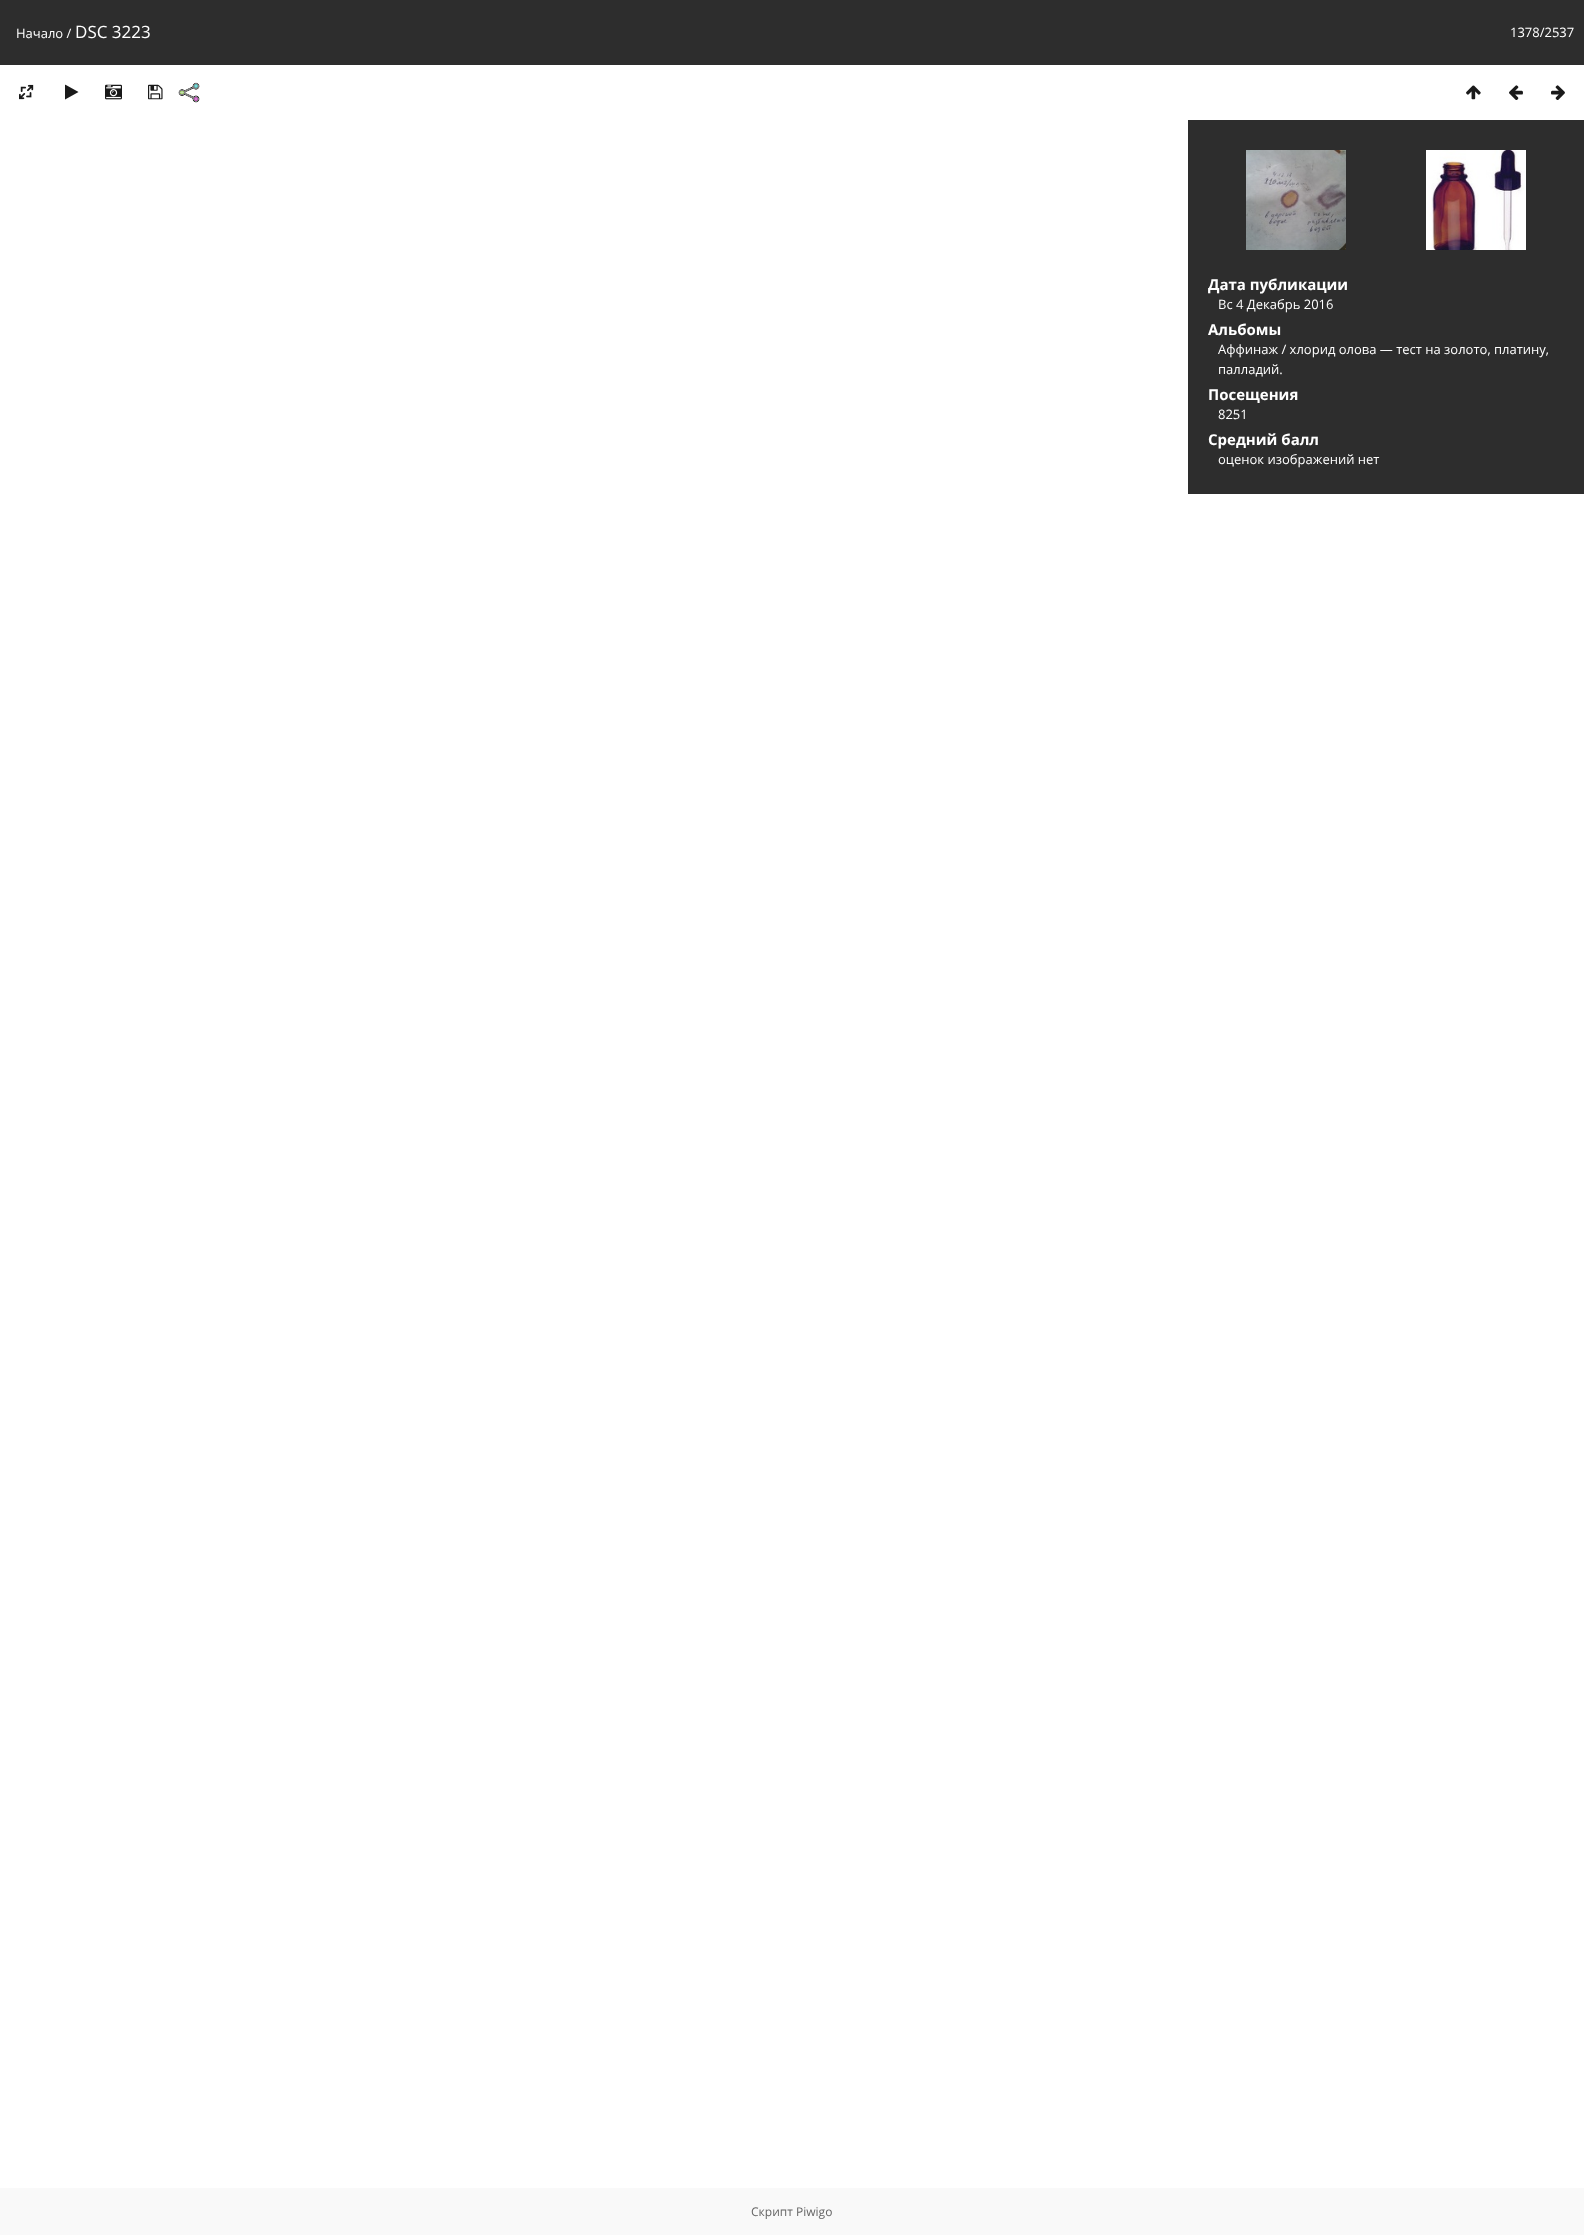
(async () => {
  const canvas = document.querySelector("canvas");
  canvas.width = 1584;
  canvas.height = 2235;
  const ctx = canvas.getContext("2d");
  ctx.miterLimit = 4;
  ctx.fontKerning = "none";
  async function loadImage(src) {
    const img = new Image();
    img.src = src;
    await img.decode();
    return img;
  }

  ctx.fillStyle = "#ffffff";
  ctx.fillRect(0, 0, 1584, 2235);
  ctx.fillStyle = "#2d2d2d";
  ctx.fillRect(0, 0, 1584, 65);
  ctx.drawImage(await loadImage("img/1.png"), 19, 84, 15, 16);
  ctx.drawImage(await loadImage("img/2.png"), 105, 84, 17, 16);
  ctx.drawImage(await loadImage("img/3.png"), 178, 82, 22, 21);
  ctx.fillRect(1188, 120, 396, 374);
  ctx.drawImage(await loadImage("img/4.png"), 1246, 150, 100, 100);
  ctx.drawImage(await loadImage("img/5.png"), 1426, 150, 100, 100);
  ctx.fillStyle = "#f9f9f9";
  ctx.fillRect(0, 2188, 1584, 47);
  ctx.font = "13px Open Sans";
  ctx.fillStyle = "#ffffff";
  ctx.fillText("Начало /", 16, 38);
  ctx.font = "17px Open Sans";
  ctx.fillText("DSC 3223", 75, 38);
  ctx.font = "13px Open Sans";
  ctx.fillText("1378/2537", 1510, 37);
  ctx.font = "17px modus";
  ctx.fillStyle = "#1a1a1a";
  for (const [text, x, y] of [
    ["▶", 65, 98],
    ["💾", 148, 98],
    ["↑", 1466, 98],
    ["←", 1509, 98],
    ["→", 1551, 98],
  ]) {
    ctx.fillText(text, x, y);
  }
  ctx.font = "bold 15px Open Sans";
  ctx.fillStyle = "#ffffff";
  ctx.fillText("Дата публикации", 1208, 290);
  ctx.font = "13px Open Sans";
  ctx.fillText("Вс 4 Декабрь 2016", 1218, 309);
  ctx.font = "bold 15px Open Sans";
  ctx.fillText("Альбомы", 1208, 335);
  ctx.font = "13px Open Sans";
  ctx.fillText("Аффинаж / хлорид олова — тест на золото, платину,", 1218, 354);
  ctx.fillText("палладий.", 1218, 374);
  ctx.font = "bold 15px Open Sans";
  ctx.fillText("Посещения", 1208, 400);
  ctx.font = "13px Open Sans";
  ctx.fillText("8251", 1218, 419);
  ctx.font = "bold 15px Open Sans";
  ctx.fillText("Средний балл", 1208, 445);
  ctx.font = "13px Open Sans";
  ctx.fillText("оценок изображений нет", 1218, 464);
  ctx.font = "12px Open Sans";
  ctx.fillStyle = "#666666";
  ctx.fillText("Скрипт Piwigo", 751, 2216);
})();
